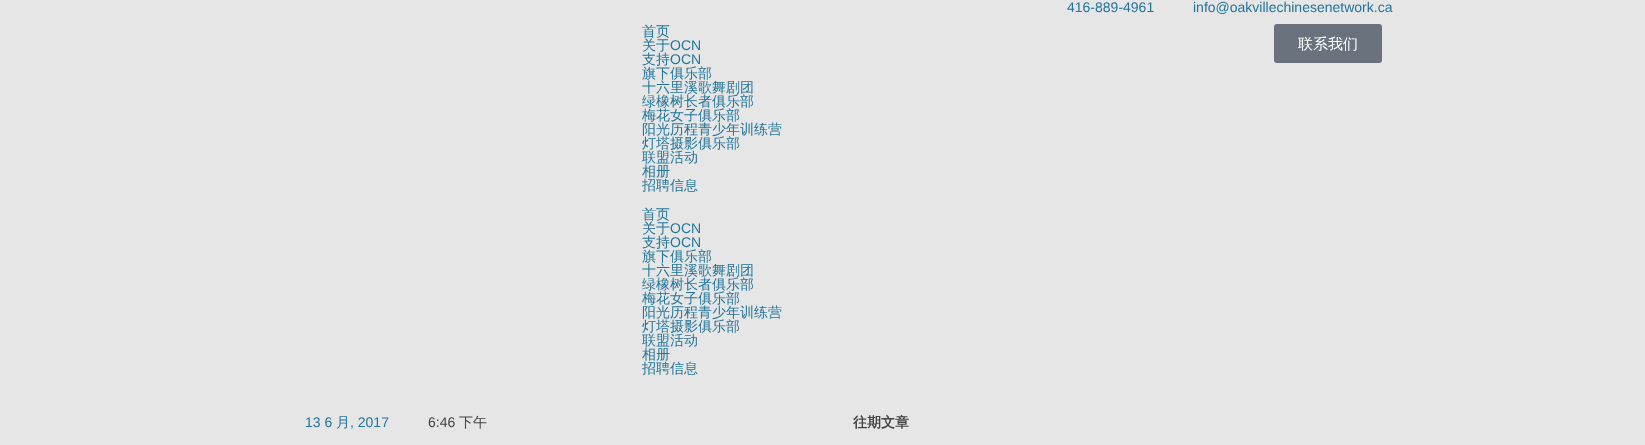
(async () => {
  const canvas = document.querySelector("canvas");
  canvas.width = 1645;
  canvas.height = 445;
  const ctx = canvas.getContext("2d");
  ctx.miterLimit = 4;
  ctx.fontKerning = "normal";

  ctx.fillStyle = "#e6e6e6";
  ctx.fillRect(0, 0, 1645, 445);
  ctx.fillStyle = "#69727d";
  ctx.beginPath();
  ctx.roundRect(1274, 24, 108, 39, 3);
  ctx.fill();
  ctx.font = "14px Liberation Sans";
  ctx.fillStyle = "#21759b";
  ctx.fillText("416-889-4961", 1067, 12);
  ctx.fillText("info@oakvillechinesenetwork.ca", 1193, 12);
  ctx.font = "500 14px WenQuanYi Zen Hei";
  ctx.fillText("首页", 642, 36);
  ctx.fillText("关于", 642, 50);
  ctx.font = "14px Liberation Sans";
  ctx.fillText("OCN", 670, 50);
  ctx.font = "500 14px WenQuanYi Zen Hei";
  ctx.fillText("支持", 642, 64);
  ctx.font = "14px Liberation Sans";
  ctx.fillText("OCN", 670, 64);
  ctx.font = "500 14px WenQuanYi Zen Hei";
  for (const [text, x, y] of [
    ["旗下俱乐部", 642, 78],
    ["十六里溪歌舞剧团", 642, 92],
    ["绿橡树长者俱乐部", 642, 106],
    ["梅花女子俱乐部", 642, 120],
    ["阳光历程青少年训练营", 642, 134],
    ["灯塔摄影俱乐部", 642, 148],
    ["联盟活动", 642, 162],
    ["相册", 642, 176],
    ["招聘信息", 642, 190],
    ["首页", 642, 219],
    ["关于", 642, 233],
  ]) {
    ctx.fillText(text, x, y);
  }
  ctx.font = "14px Liberation Sans";
  ctx.fillText("OCN", 670, 233);
  ctx.font = "500 14px WenQuanYi Zen Hei";
  ctx.fillText("支持", 642, 247);
  ctx.font = "14px Liberation Sans";
  ctx.fillText("OCN", 670, 247);
  ctx.font = "500 14px WenQuanYi Zen Hei";
  for (const [text, x, y] of [
    ["旗下俱乐部", 642, 261],
    ["十六里溪歌舞剧团", 642, 275],
    ["绿橡树长者俱乐部", 642, 289],
    ["梅花女子俱乐部", 642, 303],
    ["阳光历程青少年训练营", 642, 317],
    ["灯塔摄影俱乐部", 642, 331],
    ["联盟活动", 642, 345],
    ["相册", 642, 359],
    ["招聘信息", 642, 373],
  ]) {
    ctx.fillText(text, x, y);
  }
  ctx.font = "500 15px WenQuanYi Zen Hei";
  ctx.fillStyle = "#ffffff";
  ctx.fillText("联系我们", 1298, 49);
  ctx.font = "14px Liberation Sans";
  ctx.fillStyle = "#21759b";
  ctx.fillText("13 6", 305, 427);
  ctx.font = "500 14px WenQuanYi Zen Hei";
  ctx.fillText("月", 336, 427);
  ctx.font = "14px Liberation Sans";
  ctx.fillText(", 2017", 350, 427);
  ctx.fillStyle = "#444444";
  ctx.fillText("6:46", 428, 427);
  ctx.font = "500 14px WenQuanYi Zen Hei";
  ctx.fillText("下午", 459, 427);
  ctx.font = "bold 14px WenQuanYi Zen Hei";
  ctx.fillText("往期文章", 853, 427);
})();
